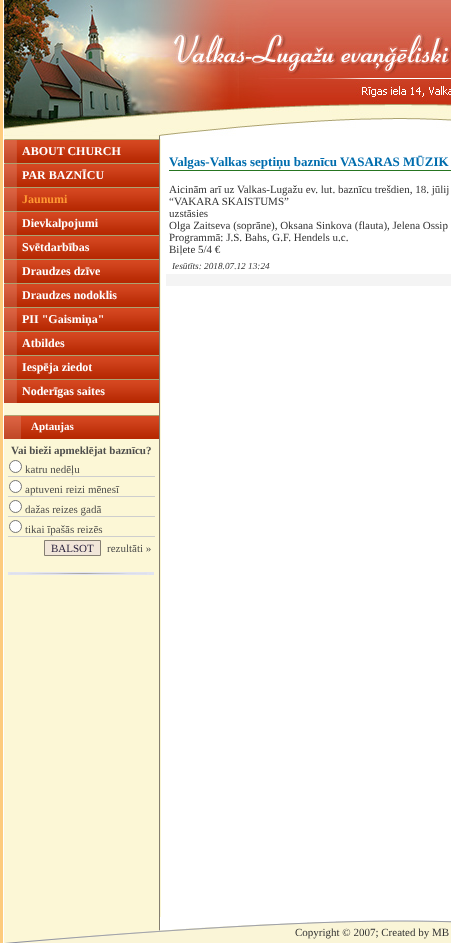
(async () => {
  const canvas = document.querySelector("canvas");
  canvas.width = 451;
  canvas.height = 943;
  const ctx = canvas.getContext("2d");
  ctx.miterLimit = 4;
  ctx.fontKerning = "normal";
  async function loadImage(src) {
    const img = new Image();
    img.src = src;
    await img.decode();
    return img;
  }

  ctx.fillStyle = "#fdcb7d";
  ctx.fillRect(0, 0, 451, 943);
  ctx.fillStyle = "#ffffff";
  ctx.fillRect(3, 0, 1, 943);
  ctx.fillRect(161, 139, 290, 778);
  ctx.drawImage(await loadImage("img/1.png"), 4, 0, 447, 139);
  ctx.fillStyle = "#fcf7d6";
  ctx.fillRect(4, 139, 157, 778);
  ctx.fillStyle = "#847e71";
  ctx.fillRect(159, 139, 1, 778);
  ctx.drawImage(await loadImage("img/2.png"), 4, 139, 18, 24);
  ctx.drawImage(await loadImage("img/3.png"), 22, 139, 137, 24);
  ctx.drawImage(await loadImage("img/2.png"), 4, 163, 18, 24);
  ctx.drawImage(await loadImage("img/3.png"), 22, 163, 137, 24);
  ctx.drawImage(await loadImage("img/2.png"), 4, 187, 18, 24);
  ctx.drawImage(await loadImage("img/3.png"), 22, 187, 137, 24);
  ctx.drawImage(await loadImage("img/2.png"), 4, 211, 18, 24);
  ctx.drawImage(await loadImage("img/3.png"), 22, 211, 137, 24);
  ctx.drawImage(await loadImage("img/2.png"), 4, 235, 18, 24);
  ctx.drawImage(await loadImage("img/3.png"), 22, 235, 137, 24);
  ctx.drawImage(await loadImage("img/2.png"), 4, 259, 18, 24);
  ctx.drawImage(await loadImage("img/3.png"), 22, 259, 137, 24);
  ctx.drawImage(await loadImage("img/2.png"), 4, 283, 18, 24);
  ctx.drawImage(await loadImage("img/3.png"), 22, 283, 137, 24);
  ctx.drawImage(await loadImage("img/2.png"), 4, 307, 18, 24);
  ctx.drawImage(await loadImage("img/3.png"), 22, 307, 137, 24);
  ctx.drawImage(await loadImage("img/2.png"), 4, 331, 18, 24);
  ctx.drawImage(await loadImage("img/3.png"), 22, 331, 137, 24);
  ctx.drawImage(await loadImage("img/2.png"), 4, 355, 18, 24);
  ctx.drawImage(await loadImage("img/3.png"), 22, 355, 137, 24);
  ctx.drawImage(await loadImage("img/2.png"), 4, 379, 18, 24);
  ctx.drawImage(await loadImage("img/3.png"), 22, 379, 137, 24);
  ctx.drawImage(await loadImage("img/4.png"), 21, 415, 138, 24);
  ctx.drawImage(await loadImage("img/5.png"), 4, 415, 17, 24);
  ctx.fillStyle = "#cecece";
  ctx.fillRect(8, 476, 147, 1);
  ctx.fillStyle = "#ffffff";
  ctx.beginPath();
  ctx.arc(15.5, 466.5, 6, 0, Math.PI * 2);
  ctx.fill();
  ctx.strokeStyle = "#767676";
  ctx.stroke();
  ctx.fillStyle = "#cecece";
  ctx.fillRect(8, 496, 147, 1);
  ctx.fillStyle = "#ffffff";
  ctx.beginPath();
  ctx.arc(15.5, 486.5, 6, 0, Math.PI * 2);
  ctx.fill();
  ctx.stroke();
  ctx.fillStyle = "#cecece";
  ctx.fillRect(8, 516, 147, 1);
  ctx.fillStyle = "#ffffff";
  ctx.beginPath();
  ctx.arc(15.5, 506.5, 6, 0, Math.PI * 2);
  ctx.fill();
  ctx.stroke();
  ctx.fillStyle = "#cecece";
  ctx.fillRect(8, 536, 147, 1);
  ctx.fillStyle = "#ffffff";
  ctx.beginPath();
  ctx.arc(15.5, 526.5, 6, 0, Math.PI * 2);
  ctx.fill();
  ctx.stroke();
  ctx.fillStyle = "#f1e6d9";
  ctx.beginPath();
  ctx.rect(44.5, 540.5, 56, 15);
  ctx.fill();
  ctx.strokeStyle = "#857f73";
  ctx.stroke();
  ctx.drawImage(await loadImage("img/6.png"), 8, 572, 146, 3);
  ctx.fillStyle = "#f4f4f4";
  ctx.fillRect(166, 274, 285, 12);
  ctx.fillStyle = "#267520";
  ctx.fillRect(169, 170, 282, 1);
  ctx.drawImage(await loadImage("img/7.png"), 4, 917, 447, 26);
  ctx.font = "bold 12px Liberation Serif";
  ctx.fillStyle = "#ffffff";
  ctx.fillText("ABOUT CHURCH", 22, 155);
  ctx.fillText("PAR BAZNĪCU", 22, 179);
  ctx.fillStyle = "#ff9933";
  ctx.fillText("Jaunumi", 22, 203);
  ctx.fillStyle = "#ffffff";
  for (const [text, x, y] of [
    ["Dievkalpojumi", 22, 227],
    ["Svētdarbības", 22, 251],
    ["Draudzes dzīve", 22, 275],
    ["Draudzes nodoklis", 22, 299],
    ["PII \"Gaismiņa\"", 22, 323],
    ["Atbildes", 22, 347],
    ["Iespēja ziedot", 22, 371],
    ["Noderīgas saites", 22, 395],
  ]) {
    ctx.fillText(text, x, y);
  }
  ctx.font = "bold 11px Liberation Serif";
  ctx.fillText("Aptaujas", 31, 430);
  ctx.fillStyle = "#4e4e4c";
  ctx.fillText("Vai bieži apmeklējat baznīcu?", 11, 454);
  ctx.font = "11px Liberation Serif";
  for (const [text, x, y] of [
    ["katru nedēļu", 25, 473],
    ["aptuveni reizi mēnesī", 25, 493],
    ["dažas reizes gadā", 25, 513],
    ["tikai īpašās reizēs", 25, 533],
  ]) {
    ctx.fillText(text, x, y);
  }
  ctx.fillStyle = "#261e3a";
  ctx.fillText("BALSOT", 51, 552);
  ctx.fillStyle = "#4e4e4c";
  ctx.fillText("rezultāti »", 107, 552);
  ctx.font = "bold 13px Liberation Serif";
  ctx.fillStyle = "#006dae";
  ctx.fillText("Valgas-Valkas septiņu baznīcu VASARAS MŪZIK", 169, 166);
  ctx.font = "11px Liberation Serif";
  ctx.fillStyle = "#333333";
  for (const [text, x, y] of [
    ["Aicinām arī uz Valkas-Lugažu ev. lut. baznīcu trešdien, 18. jūlij", 169, 193],
    ["“VAKARA SKAISTUMS”", 169, 205],
    ["uzstāsies", 169, 217],
    ["Olga Zaitseva (soprāne), Oksana Sinkova (flauta), Jelena Ossip", 169, 229],
    ["Programmā: J.S. Bahs, G.F. Hendels u.c.", 169, 241],
    ["Biļete 5/4 €", 169, 253],
  ]) {
    ctx.fillText(text, x, y);
  }
  ctx.font = "italic 9.25px Liberation Serif";
  ctx.fillText("Iesūtīts: 2018.07.12 13:24", 172, 269);
  ctx.font = "11px Liberation Serif";
  ctx.fillText("Copyright © 2007; Created by MB", 295, 936);
})();
